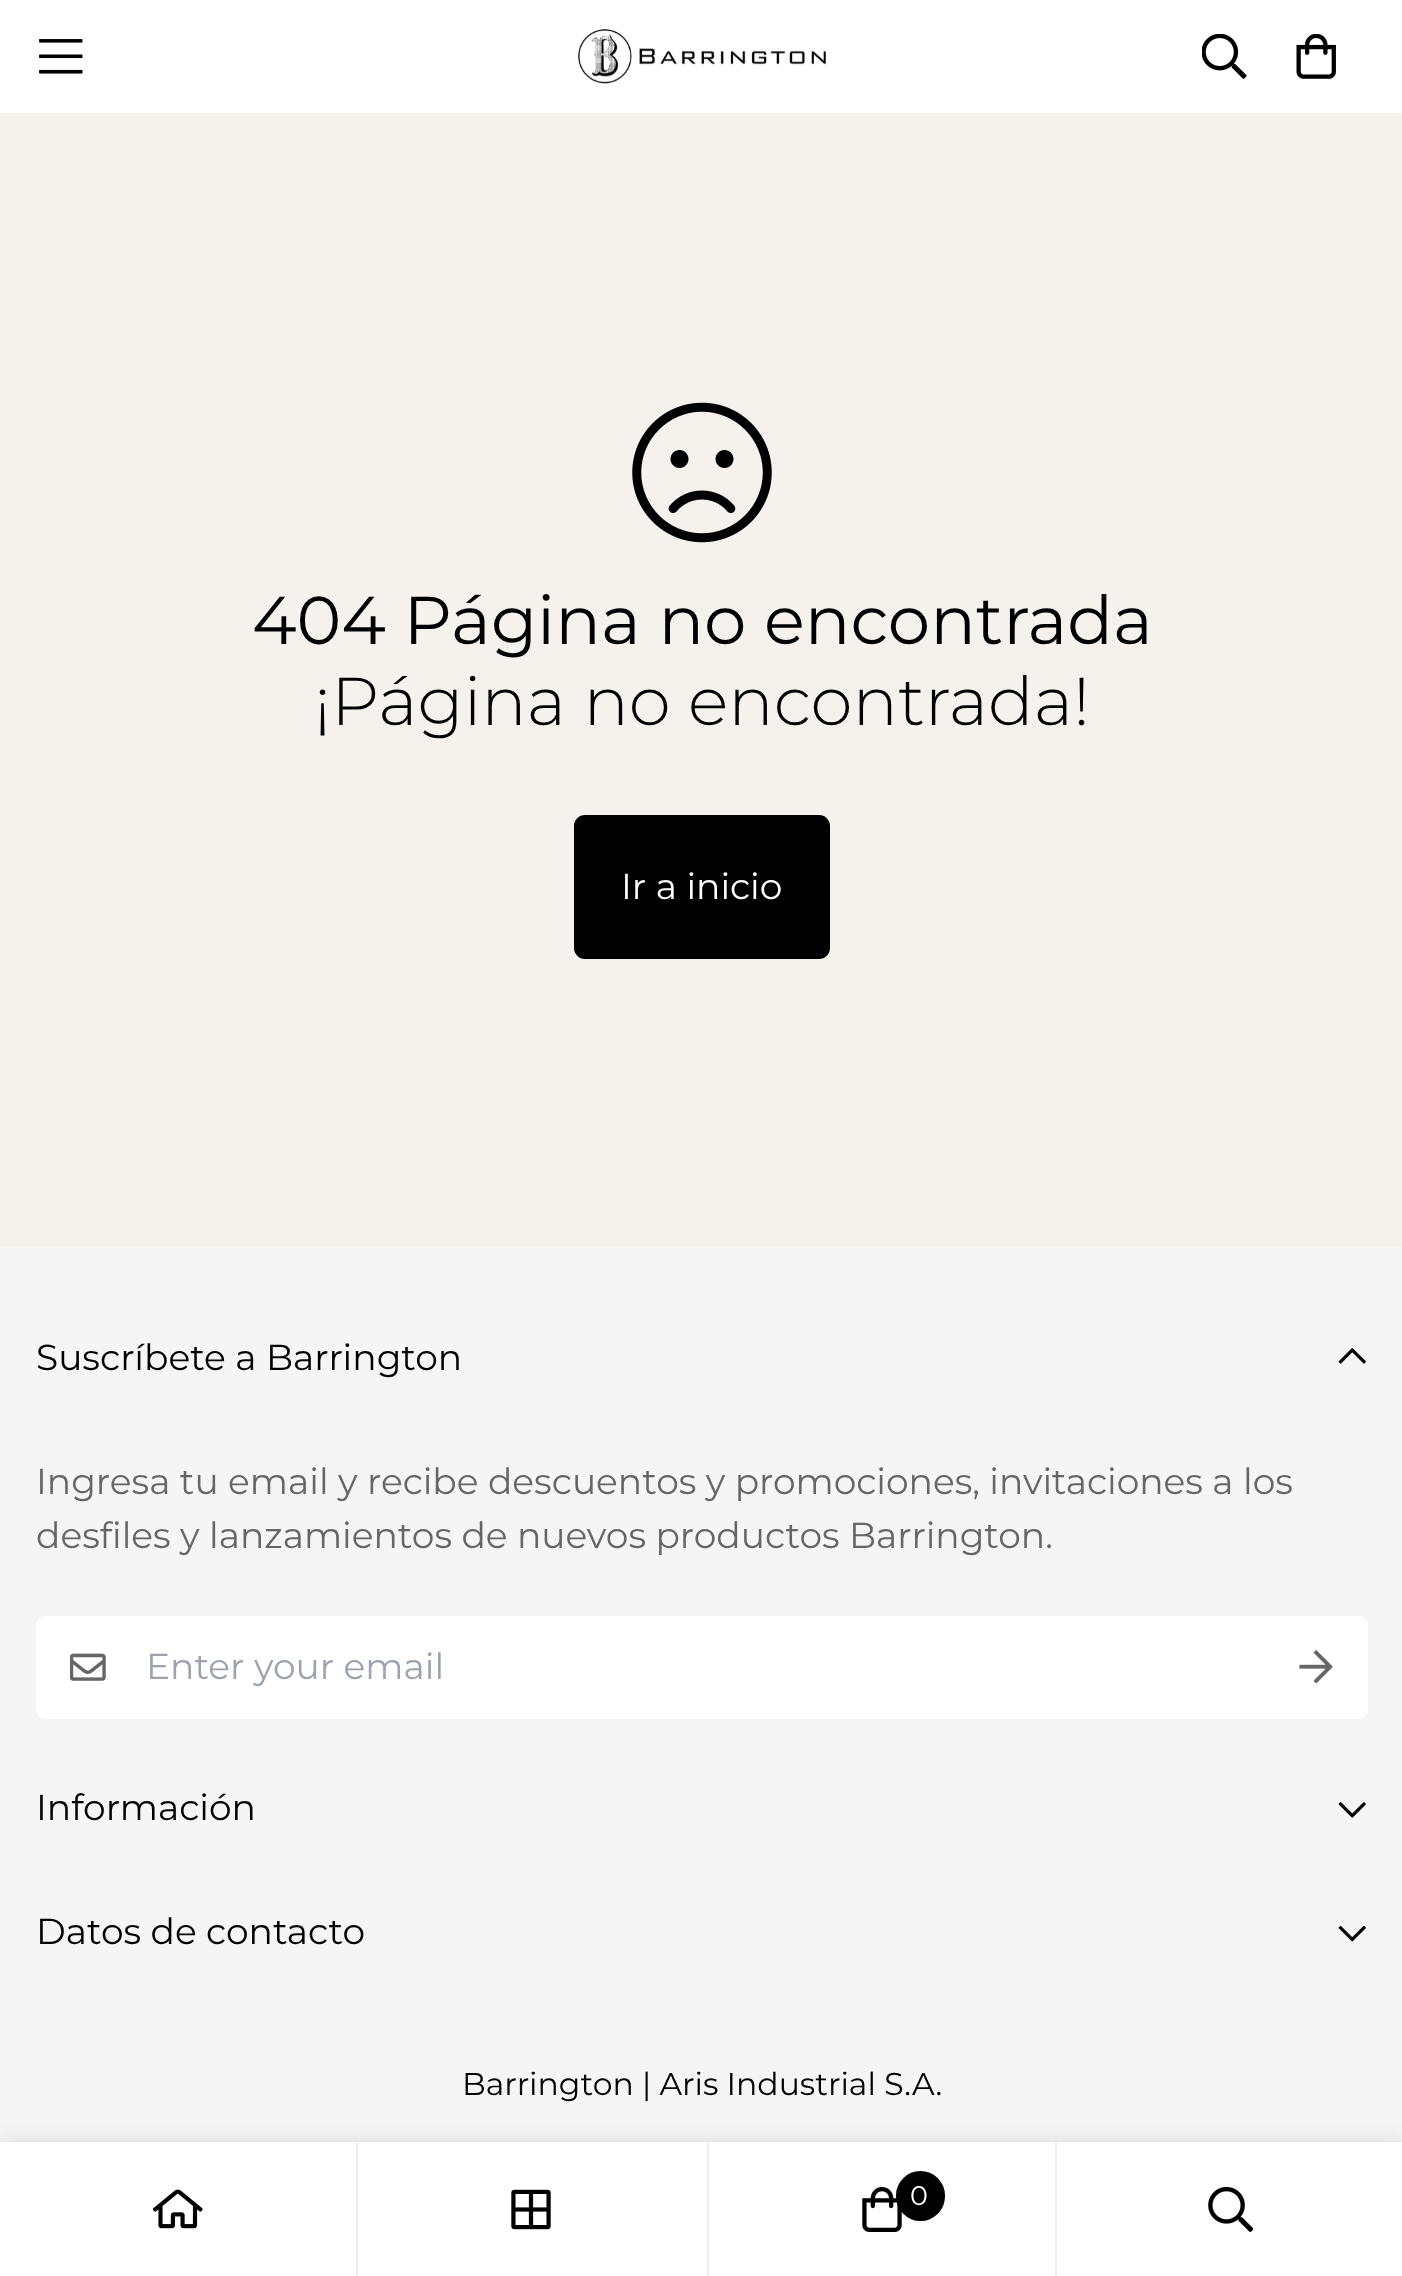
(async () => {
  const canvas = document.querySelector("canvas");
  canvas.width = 1402;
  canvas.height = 2276;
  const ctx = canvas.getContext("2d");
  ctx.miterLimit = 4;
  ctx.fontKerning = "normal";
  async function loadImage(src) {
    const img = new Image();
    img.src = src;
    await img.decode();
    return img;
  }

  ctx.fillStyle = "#ffffff";
  ctx.fillRect(0, 0, 1402, 2276);
  ctx.drawImage(await loadImage("img/1.png"), 39, 39, 44, 35);
  ctx.drawImage(await loadImage("img/2.png"), 578, 29, 248, 55);
  ctx.drawImage(await loadImage("img/3.png"), 1202, 34, 45, 45);
  ctx.drawImage(await loadImage("img/4.png"), 1296, 34, 40, 45);
  ctx.fillStyle = "#f5f1ed";
  ctx.fillRect(0, 113, 1402, 1134);
  ctx.drawImage(await loadImage("img/5.png"), 632, 402, 140, 141);
  ctx.fillStyle = "#000000";
  ctx.beginPath();
  ctx.roundRect(575, 816, 254, 142, 10);
  ctx.fill();
  ctx.strokeStyle = "#000000";
  ctx.lineWidth = 2;
  ctx.stroke();
  ctx.fillStyle = "#f5f5f5";
  ctx.fillRect(0, 1247, 1402, 895);
  ctx.drawImage(await loadImage("img/6.png"), 1338, 1348, 28, 16);
  ctx.fillStyle = "#ffffff";
  ctx.beginPath();
  ctx.roundRect(36, 1616, 1332, 103, 9);
  ctx.fill();
  ctx.drawImage(await loadImage("img/7.png"), 70, 1653, 36, 28);
  ctx.drawImage(await loadImage("img/8.png"), 1299, 1650, 34, 34);
  ctx.drawImage(await loadImage("img/9.png"), 1338, 1802, 28, 16);
  ctx.drawImage(await loadImage("img/10.png"), 1338, 1925, 28, 17);
  ctx.fillStyle = "rgba(0, 0, 0, 0.11)";
  ctx.filter = "blur(11px)";
  ctx.beginPath();
  ctx.rect(0, 2142, 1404, 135);
  ctx.fill();
  ctx.filter = "none";
  ctx.fillStyle = "#ffffff";
  ctx.fillRect(0, 2142, 1402, 134);
  ctx.fillStyle = "#eeeeee";
  ctx.fillRect(356, 2142, 2, 134);
  ctx.drawImage(await loadImage("img/11.png"), 152, 2189, 51, 40);
  ctx.fillRect(707, 2142, 2, 134);
  ctx.drawImage(await loadImage("img/12.png"), 511, 2189, 40, 41);
  ctx.fillRect(1055, 2142, 2, 134);
  ctx.drawImage(await loadImage("img/13.png"), 862, 2187, 40, 45);
  ctx.fillStyle = "#000000";
  ctx.beginPath();
  ctx.roundRect(896, 2171, 49, 50, 24.5);
  ctx.fill();
  ctx.drawImage(await loadImage("img/14.png"), 1208, 2187, 45, 45);
  ctx.font = "67.5px Montserrat";
  ctx.fillText("404 Página no encontrada", 252, 644);
  ctx.font = "300 67.5px Montserrat";
  ctx.fillText("¡Página no encontrada!", 314, 725);
  ctx.font = "36px Montserrat";
  ctx.fillStyle = "#ffffff";
  ctx.fillText("Ir a inicio", 621, 899);
  ctx.fillStyle = "#000000";
  ctx.fillText("Suscríbete a Barrington", 36, 1370);
  ctx.fillStyle = "#666666";
  ctx.fillText("Ingresa tu email y recibe descuentos y promociones, invitaciones a los", 36, 1494);
  ctx.fillText("desfiles y lanzamientos de nuevos productos Barrington.", 36, 1548);
  ctx.fillStyle = "#9ca3af";
  ctx.fillText("Enter your email", 146, 1679);
  ctx.fillStyle = "#000000";
  ctx.fillText("Información", 36, 1820);
  ctx.fillText("Datos de contacto", 36, 1944);
  ctx.font = "31.5px Montserrat";
  ctx.fillText("Barrington | Aris Industrial S.A.", 462, 2095);
  ctx.font = "27px Montserrat";
  ctx.fillStyle = "#ffffff";
  ctx.fillText("0", 910, 2205);
})();
